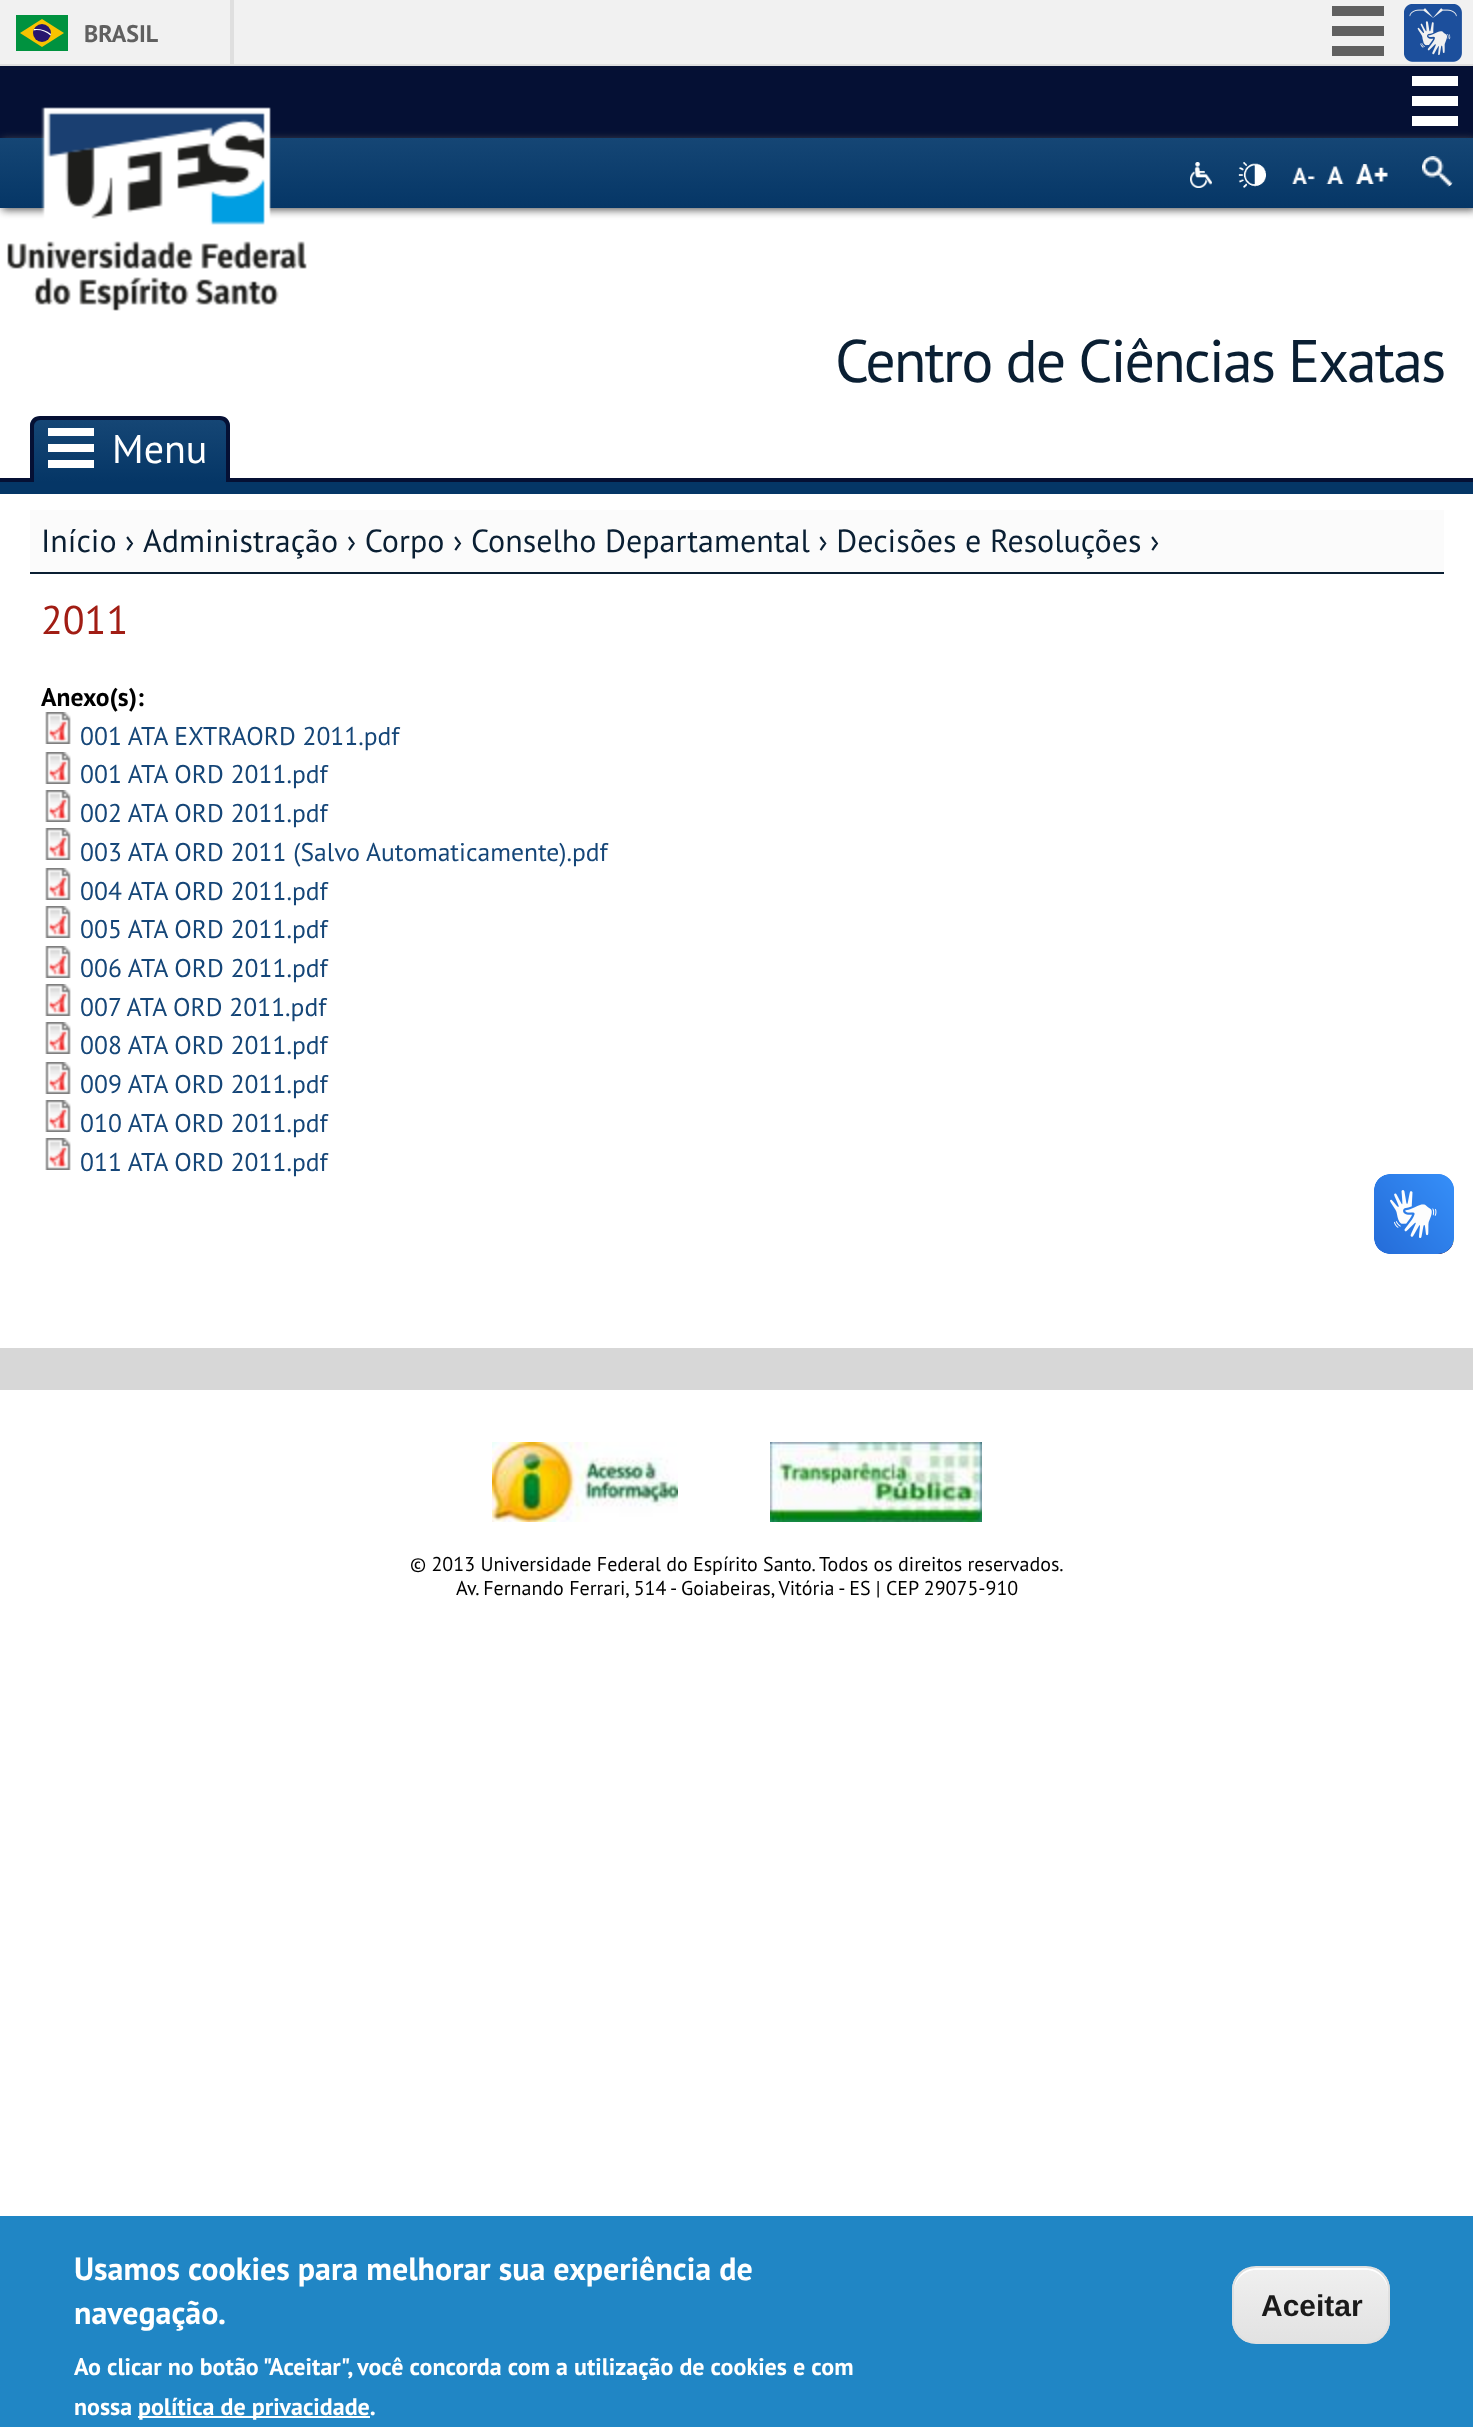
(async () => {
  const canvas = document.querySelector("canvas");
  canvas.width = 1473;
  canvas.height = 2427;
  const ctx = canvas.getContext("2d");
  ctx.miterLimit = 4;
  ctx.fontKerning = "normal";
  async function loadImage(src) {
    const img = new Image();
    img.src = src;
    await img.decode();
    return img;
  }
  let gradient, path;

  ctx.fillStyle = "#ffffff";
  ctx.fillRect(0, 0, 1473, 2427);
  for (const [x, y, w, h, color] of [
    [0, 0, 1473, 64, "#f1f1f1"],
    [0, 64, 1473, 2, "#dfdfdf"],
    [230, 0, 4, 64, "#dfdfdf"],
    [16, 15, 52, 36, "#00923f"],
  ]) {
    ctx.fillStyle = color;
    ctx.fillRect(x, y, w, h);
  }
  ctx.fillStyle = "#f8c300";
  path = new Path2D("M42 19L20 33L42 47L64 33Z");
  ctx.fill(path);
  ctx.fillStyle = "#28166f";
  ctx.beginPath();
  ctx.arc(42, 33, 9, 0, Math.PI * 2);
  ctx.fill();
  ctx.fillStyle = "#ffffff";
  path = new Path2D("M36.5 30C42 30 47 32 50.5 35.5L51 34C46 30 40 28.5 34 29L33.5 30.5Z");
  ctx.fill(path);
  for (const [x, y, w, h, color] of [
    [1332, 6, 52, 10, "#606060"],
    [1332, 26, 52, 10, "#606060"],
    [1332, 46, 52, 10, "#606060"],
  ]) {
    ctx.fillStyle = color;
    ctx.fillRect(x, y, w, h);
  }
  ctx.drawImage(await loadImage("img/1.png"), 1404, 4, 58, 58);
  for (const [x, y, w, h, color] of [
    [0, 66, 1473, 72, "#051034"],
    [1412, 76, 46, 10, "#ffffff"],
    [1412, 96, 46, 10, "#ffffff"],
    [1412, 116, 46, 10, "#ffffff"],
  ]) {
    ctx.fillStyle = color;
    ctx.fillRect(x, y, w, h);
  }
  ctx.fillStyle = "#595959";
  ctx.filter = "blur(4px)";
  ctx.beginPath();
  ctx.rect(2, 140, 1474, 70);
  ctx.fill();
  ctx.filter = "none";
  gradient = ctx.createLinearGradient(737, 138, 737, 208);
  gradient.addColorStop(0, "#154675");
  gradient.addColorStop(1, "#053666");
  ctx.fillStyle = gradient;
  ctx.fillRect(0, 138, 1473, 70);
  ctx.drawImage(await loadImage("img/2.png"), 7, 107, 300, 204);
  ctx.drawImage(await loadImage("img/3.png"), 1190, 162, 22, 26);
  ctx.drawImage(await loadImage("img/4.png"), 1238, 162, 28, 26);
  ctx.drawImage(await loadImage("img/5.png"), 1292, 167, 23, 17);
  ctx.drawImage(await loadImage("img/6.png"), 1326, 166, 18, 18);
  ctx.drawImage(await loadImage("img/7.png"), 1355, 164, 33, 20);
  ctx.drawImage(await loadImage("img/8.png"), 1422, 156, 31, 31);
  ctx.fillStyle = "#053666";
  ctx.fillRect(0, 482, 1473, 12);
  ctx.fillStyle = "#051034";
  ctx.fillRect(0, 478, 1473, 4);
  ctx.save();
  ctx.beginPath();
  ctx.roundRect(30, 416, 200, 66, [10, 10, 0, 0]);
  ctx.clip();
  gradient = ctx.createLinearGradient(130, 420, 130, 482);
  gradient.addColorStop(0, "#154675");
  gradient.addColorStop(1, "#053666");
  ctx.fillStyle = gradient;
  ctx.fillRect(30, 420, 200, 62);
  ctx.restore();
  path = new Path2D("M40 416H220C226 416 230 420 230 426V482H30V426C30 420 34 416 40 416ZM40 420H220C223 420 226 423 226 426V482H34V426C34 423 37 420 40 420Z");
  ctx.fill(path, "evenodd");
  for (const [x, y, w, h, color] of [
    [48, 428, 46, 8, "#ffffff"],
    [48, 444, 46, 8, "#ffffff"],
    [48, 460, 46, 8, "#ffffff"],
    [30, 510, 1414, 62, "#fbfbfb"],
    [30, 572, 1414, 2, "#0a1f33"],
  ]) {
    ctx.fillStyle = color;
    ctx.fillRect(x, y, w, h);
  }
  ctx.drawImage(await loadImage("img/9.png"), 45, 712, 26, 32);
  ctx.drawImage(await loadImage("img/9.png"), 45, 752, 26, 32);
  ctx.drawImage(await loadImage("img/9.png"), 45, 790, 26, 32);
  ctx.drawImage(await loadImage("img/9.png"), 45, 828, 26, 32);
  ctx.drawImage(await loadImage("img/9.png"), 45, 868, 26, 32);
  ctx.drawImage(await loadImage("img/9.png"), 45, 906, 26, 32);
  ctx.drawImage(await loadImage("img/9.png"), 45, 946, 26, 32);
  ctx.drawImage(await loadImage("img/9.png"), 45, 984, 26, 32);
  ctx.drawImage(await loadImage("img/9.png"), 45, 1022, 26, 32);
  ctx.drawImage(await loadImage("img/9.png"), 45, 1062, 26, 32);
  ctx.drawImage(await loadImage("img/9.png"), 45, 1100, 26, 32);
  ctx.drawImage(await loadImage("img/9.png"), 45, 1138, 26, 32);
  ctx.fillStyle = "#d7d7d7";
  ctx.fillRect(0, 1348, 1473, 42);
  ctx.drawImage(await loadImage("img/10.png"), 1374, 1174, 80, 80);
  ctx.drawImage(await loadImage("img/11.png"), 1374, 1174, 80, 80);
  ctx.drawImage(await loadImage("img/12.png"), 492, 1442, 186, 80);
  ctx.drawImage(await loadImage("img/13.png"), 770, 1442, 212, 80);
  ctx.fillStyle = "#2086c5";
  ctx.fillRect(0, 2216, 1473, 211);
  ctx.fillStyle = "#ffffff";
  ctx.fillRect(138, 2416, 232, 2);
  ctx.save();
  ctx.beginPath();
  ctx.roundRect(1232, 2266, 158, 78, 24);
  ctx.clip();
  gradient = ctx.createLinearGradient(1311, 2268, 1311, 2342);
  gradient.addColorStop(0.05, "#efefef");
  gradient.addColorStop(1, "#e2e2e2");
  ctx.fillStyle = gradient;
  ctx.fillRect(1232, 2268, 158, 74);
  ctx.restore();
  path = new Path2D("M1256 2270H1366C1378 2270 1388 2280 1388 2292V2290C1388 2278 1378 2268 1366 2268H1256C1244 2268 1234 2278 1234 2290V2292C1234 2280 1244 2270 1256 2270Z");
  ctx.fill(path);
  ctx.beginPath();
  ctx.roundRect(1233, 2267, 156, 76, 23);
  ctx.strokeStyle = "#e0e0e0";
  ctx.lineWidth = 2;
  ctx.stroke();
  ctx.font = "bold 24px PT Sans";
  ctx.fillStyle = "#606060";
  ctx.fillText("BRASIL", 84, 42);
  ctx.letterSpacing = "-2px";
  ctx.font = "60px PT Sans";
  ctx.fillStyle = "#0a1f33";
  ctx.fillText("Centro de Ciências Exatas", 835, 382);
  ctx.letterSpacing = "0px";
  ctx.font = "40px PT Sans";
  ctx.fillStyle = "#ffffff";
  ctx.fillText("Menu", 112, 463);
  ctx.font = "32px PT Sans";
  ctx.fillStyle = "#0a1f33";
  for (const [text, x, y] of [
    ["Início", 41, 552],
    ["›", 125, 552],
    ["Administração › Corpo › Conselho Departamental › Decisões e Resoluções ›", 143, 552],
  ]) {
    ctx.fillText(text, x, y);
  }
  ctx.font = "40px PT Sans";
  ctx.fillStyle = "#a11d14";
  ctx.fillText("2011", 41, 634);
  ctx.font = "bold 25.6px PT Sans";
  ctx.fillStyle = "#000000";
  ctx.fillText("Anexo(s):", 41, 706);
  ctx.font = "25.6px PT Sans";
  ctx.fillStyle = "#154678";
  for (const [text, x, y] of [
    ["001 ATA EXTRAORD 2011.pdf", 80, 745],
    ["001 ATA ORD 2011.pdf", 80, 783],
    ["002 ATA ORD 2011.pdf", 80, 822],
    ["003 ATA ORD 2011 (Salvo Automaticamente).pdf", 80, 861],
    ["004 ATA ORD 2011.pdf", 80, 900],
    ["005 ATA ORD 2011.pdf", 80, 938],
    ["006 ATA ORD 2011.pdf", 80, 977],
    ["007 ATA ORD 2011.pdf", 80, 1016],
    ["008 ATA ORD 2011.pdf", 80, 1054],
    ["009 ATA ORD 2011.pdf", 80, 1093],
    ["010 ATA ORD 2011.pdf", 80, 1132],
    ["011 ATA ORD 2011.pdf", 80, 1171],
  ]) {
    ctx.fillText(text, x, y);
  }
  ctx.font = "20px PT Sans";
  ctx.fillStyle = "#000000";
  ctx.fillText("© 2013 Universidade Federal do Espírito Santo. Todos os direitos reservados.", 410, 1571);
  ctx.fillText("Av. Fernando Ferrari, 514 - Goiabeiras, Vitória - ES | CEP 29075-910", 456, 1595);
  ctx.font = "bold 32px PT Sans";
  ctx.fillStyle = "#ffffff";
  ctx.fillText("Usamos cookies para melhorar sua experiência de", 74, 2280);
  ctx.fillText("navegação.", 74, 2324);
  ctx.font = "bold 24px PT Sans";
  for (const [text, x, y] of [
    ["Ao clicar no botão \"Aceitar\", você concorda com a utilização de cookies e com", 74, 2375],
    ["nossa", 74, 2415],
    ["política de privacidade.", 138, 2415],
  ]) {
    ctx.fillText(text, x, y);
  }
  ctx.font = "bold 30px Liberation Sans";
  ctx.fillStyle = "#1a1a1a";
  ctx.fillText("Aceitar", 1261, 2316);
})();
